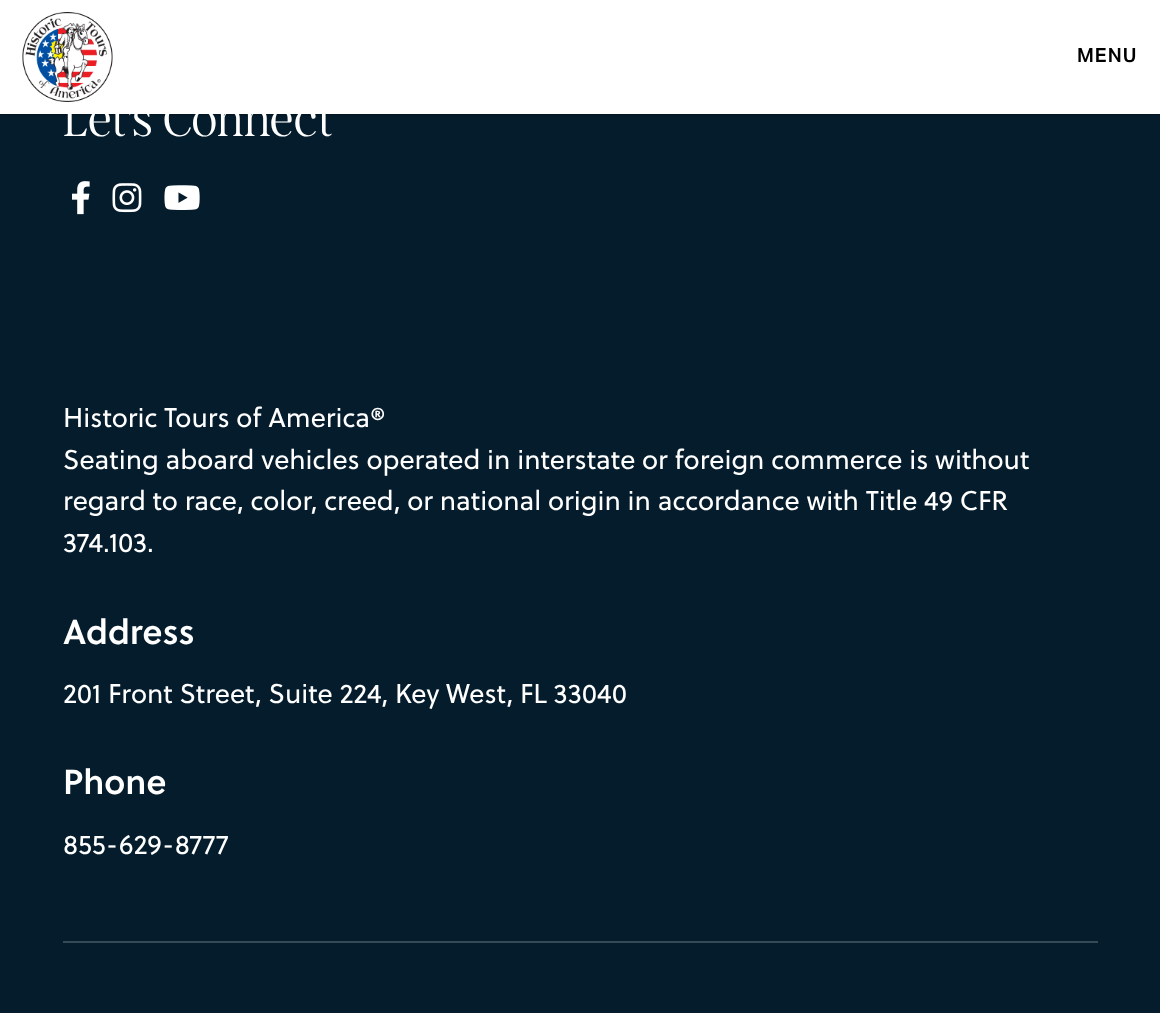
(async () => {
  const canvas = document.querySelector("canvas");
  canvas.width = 1160;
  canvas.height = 1013;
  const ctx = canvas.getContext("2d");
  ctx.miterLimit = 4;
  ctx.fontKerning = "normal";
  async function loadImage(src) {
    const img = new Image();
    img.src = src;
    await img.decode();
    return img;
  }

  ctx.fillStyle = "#041c2c";
  ctx.fillRect(0, 0, 1160, 1013);
  ctx.fillStyle = "rgba(0, 0, 0, 0.5)";
  ctx.filter = "blur(1.5px)";
  ctx.beginPath();
  ctx.rect(0, 0, 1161, 114);
  ctx.fill();
  ctx.filter = "none";
  ctx.fillStyle = "#ffffff";
  ctx.fillRect(0, 0, 1160, 114);
  ctx.drawImage(await loadImage("img/1.png"), 22, 12, 91, 90);
  ctx.drawImage(await loadImage("img/2.png"), 72, 181, 18, 34);
  ctx.drawImage(await loadImage("img/3.png"), 112, 183, 30, 30);
  ctx.drawImage(await loadImage("img/4.png"), 164, 185, 36, 25);
  ctx.fillStyle = "#364956";
  ctx.fillRect(63, 941, 1035, 2);
  ctx.letterSpacing = "1px";
  ctx.font = "600 19.5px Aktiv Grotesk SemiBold";
  ctx.fillStyle = "#000000";
  ctx.fillText("MENU", 1077, 62);
  ctx.letterSpacing = "0px";
  ctx.font = "100 51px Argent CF";
  ctx.fillStyle = "#ffffff";
  ctx.fillText("Let's Connect", 63, 136);
  ctx.font = "27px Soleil";
  for (const [text, x, y] of [
    ["Historic Tours of America®", 63, 427],
    ["Seating aboard vehicles operated in interstate or foreign commerce is without", 63, 469],
    ["regard to race, color, creed, or national origin in accordance with Title 49 CFR", 63, 510],
    ["374.103.", 63, 552],
  ]) {
    ctx.fillText(text, x, y);
  }
  ctx.font = "600 34.5px Soleil";
  ctx.fillText("Address", 63, 644);
  ctx.font = "27px Soleil";
  ctx.fillText("201 Front Street, Suite 224, Key West, FL 33040", 63, 703);
  ctx.font = "600 34.5px Soleil";
  ctx.fillText("Phone", 63, 794);
  ctx.font = "27px Soleil";
  ctx.fillText("855-629-8777", 63, 854);
})();
